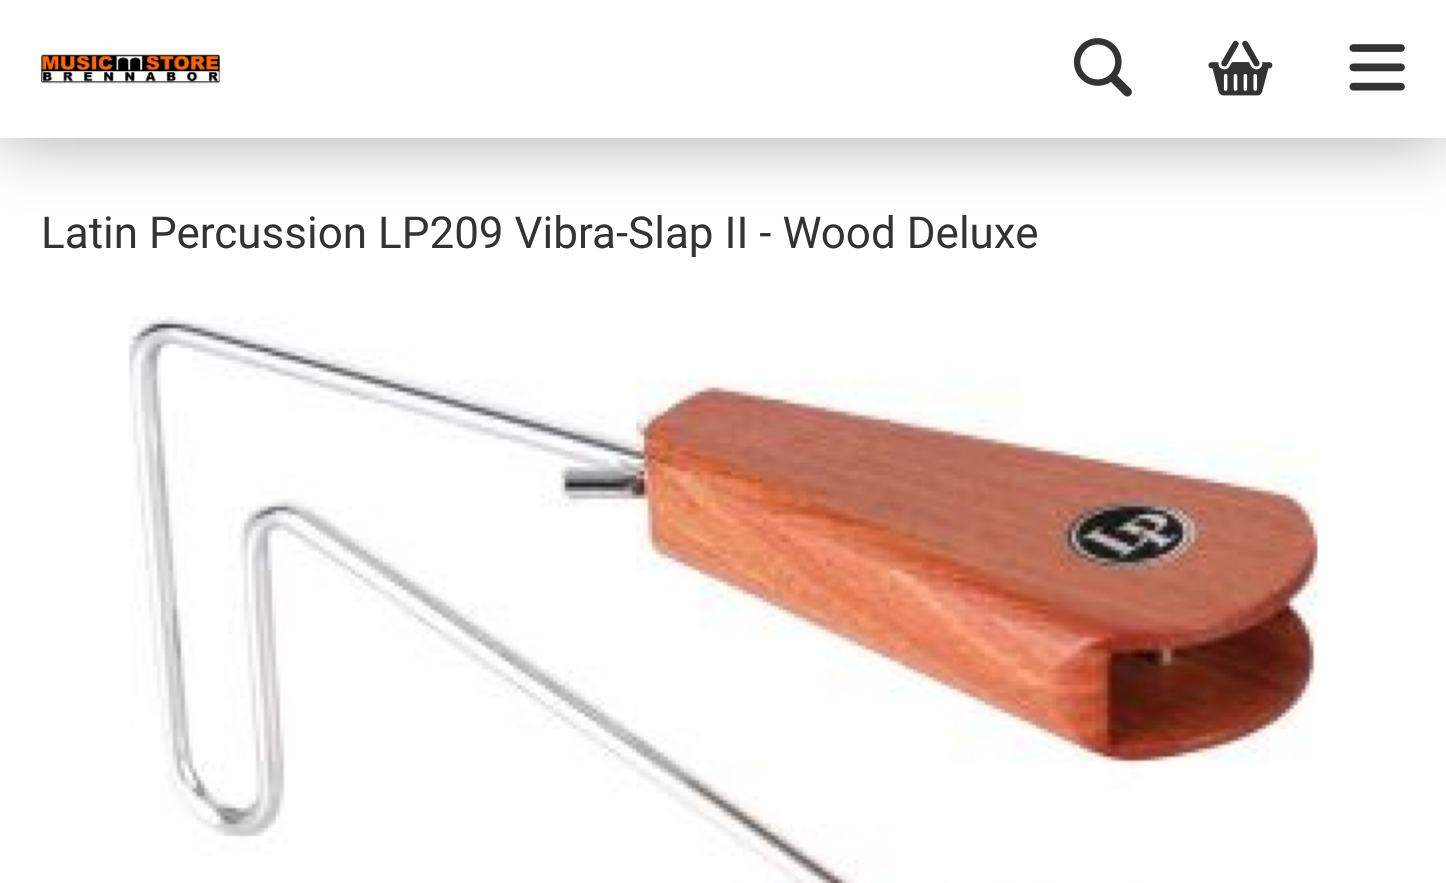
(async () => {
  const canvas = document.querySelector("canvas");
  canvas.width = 1446;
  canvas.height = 883;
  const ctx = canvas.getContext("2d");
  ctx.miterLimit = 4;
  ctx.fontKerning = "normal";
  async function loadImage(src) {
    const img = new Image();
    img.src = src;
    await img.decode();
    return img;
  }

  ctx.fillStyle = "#ffffff";
  ctx.fillRect(0, 0, 1446, 883);
  ctx.fillStyle = "rgba(0, 0, 0, 0.35)";
  ctx.filter = "blur(34.5px)";
  ctx.beginPath();
  ctx.rect(0, 0, 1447, 138);
  ctx.fill();
  ctx.filter = "none";
  ctx.fillStyle = "#ffffff";
  ctx.fillRect(0, 0, 1446, 138);
  ctx.drawImage(await loadImage("img/1.png"), 41, 54, 179, 30);
  ctx.drawImage(await loadImage("img/2.png"), 1073, 38, 59, 59);
  ctx.drawImage(await loadImage("img/3.png"), 1208, 40, 65, 56);
  ctx.drawImage(await loadImage("img/4.png"), 1349, 44, 56, 47);
  ctx.drawImage(await loadImage("img/5.png"), 128, 316, 1190, 567);
  ctx.font = "44px Roboto";
  ctx.fillStyle = "#333333";
  ctx.fillText("Latin Percussion LP209 Vibra-Slap II - Wood Deluxe", 41, 248);
})();
